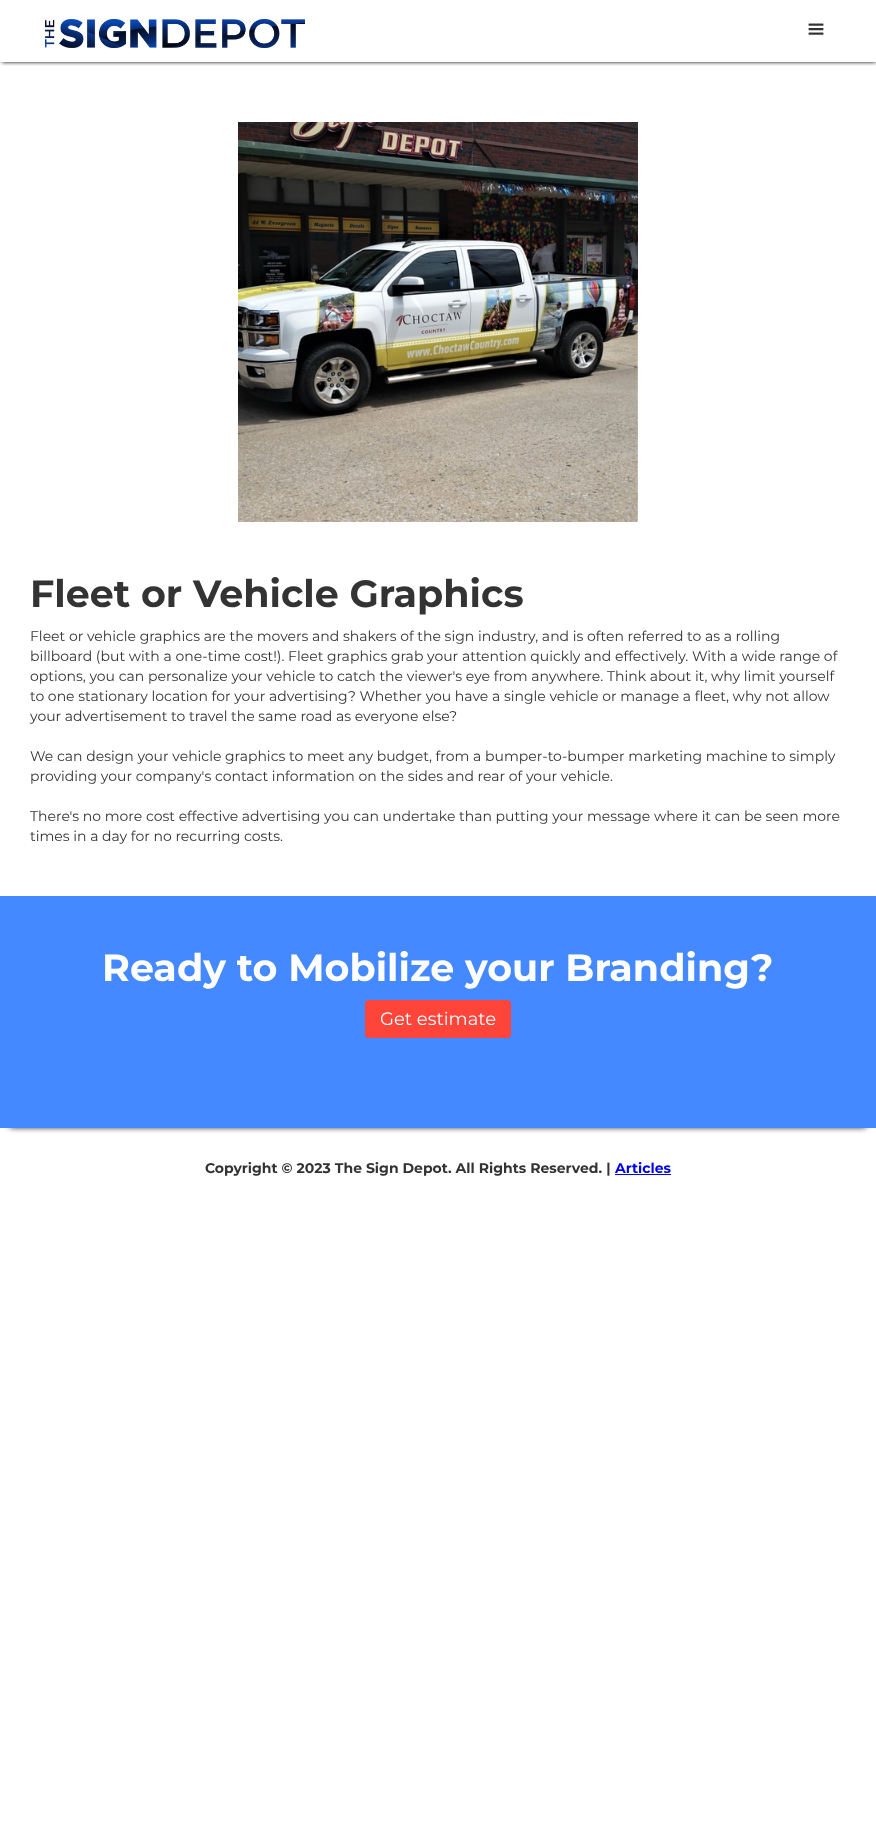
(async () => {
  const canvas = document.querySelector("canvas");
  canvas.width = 876;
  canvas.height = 1822;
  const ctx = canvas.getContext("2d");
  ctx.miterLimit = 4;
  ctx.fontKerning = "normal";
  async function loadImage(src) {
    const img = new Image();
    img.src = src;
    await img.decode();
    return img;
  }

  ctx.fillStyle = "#ffffff";
  ctx.fillRect(0, 0, 876, 1822);
  ctx.save();
  ctx.beginPath();
  ctx.rect(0, 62, 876, 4);
  ctx.clip();
  ctx.fillStyle = "#000000";
  ctx.filter = "blur(2px)";
  ctx.beginPath();
  ctx.rect(2, 2, 874, 60);
  ctx.fill();
  ctx.filter = "none";
  ctx.restore();
  ctx.drawImage(await loadImage("img/1.png"), 45, 19, 260, 29);
  ctx.drawImage(await loadImage("img/2.png"), 808, 23, 16, 12);
  ctx.drawImage(await loadImage("img/3.png"), 238, 122, 400, 400);
  ctx.fillStyle = "#000000";
  ctx.filter = "blur(3px)";
  ctx.beginPath();
  ctx.rect(10, 915, 856, 212);
  ctx.fill();
  ctx.filter = "none";
  ctx.fillStyle = "#4489ff";
  ctx.fillRect(0, 896, 876, 232);
  ctx.fillStyle = "#ff443a";
  ctx.beginPath();
  ctx.roundRect(365, 1000, 146, 38, 4);
  ctx.fill();
  ctx.fillStyle = "#0000ee";
  ctx.fillRect(615, 1174, 56, 1);
  ctx.font = "bold 38px Montserrat";
  ctx.fillStyle = "#333333";
  ctx.fillText("Fleet or Vehicle Graphics", 30, 607);
  ctx.font = "14px Montserrat";
  for (const [text, x, y] of [
    ["Fleet or vehicle graphics are the movers and shakers of the sign industry, and is often referred to as a rolling", 30, 641],
    ["billboard (but with a one-time cost!). Fleet graphics grab your attention quickly and effectively. With a wide range of", 30, 661],
    ["options, you can personalize your vehicle to catch the viewer's eye from anywhere. Think about it, why limit yourself", 30, 681],
    ["to one stationary location for your advertising? Whether you have a single vehicle or manage a fleet, why not allow", 30, 701],
    ["your advertisement to travel the same road as everyone else?", 30, 721],
    ["We can design your vehicle graphics to meet any budget, from a bumper-to-bumper marketing machine to simply", 30, 761],
    ["providing your company's contact information on the sides and rear of your vehicle.", 30, 781],
    ["There's no more cost effective advertising you can undertake than putting your message where it can be seen more", 30, 821],
    ["times in a day for no recurring costs.", 30, 841],
  ]) {
    ctx.fillText(text, x, y);
  }
  ctx.font = "bold 38px Montserrat";
  ctx.fillStyle = "#ffffff";
  ctx.fillText("Ready to Mobilize your Branding?", 102, 981);
  ctx.font = "18px Montserrat";
  ctx.fillText("Get estimate", 380, 1025);
  ctx.font = "bold 14px Montserrat";
  ctx.fillStyle = "#333333";
  ctx.fillText("Copyright © 2023 The Sign Depot. All Rights Reserved. |", 205, 1173);
  ctx.fillStyle = "#0000ee";
  ctx.fillText("Articles", 615, 1173);
})();
